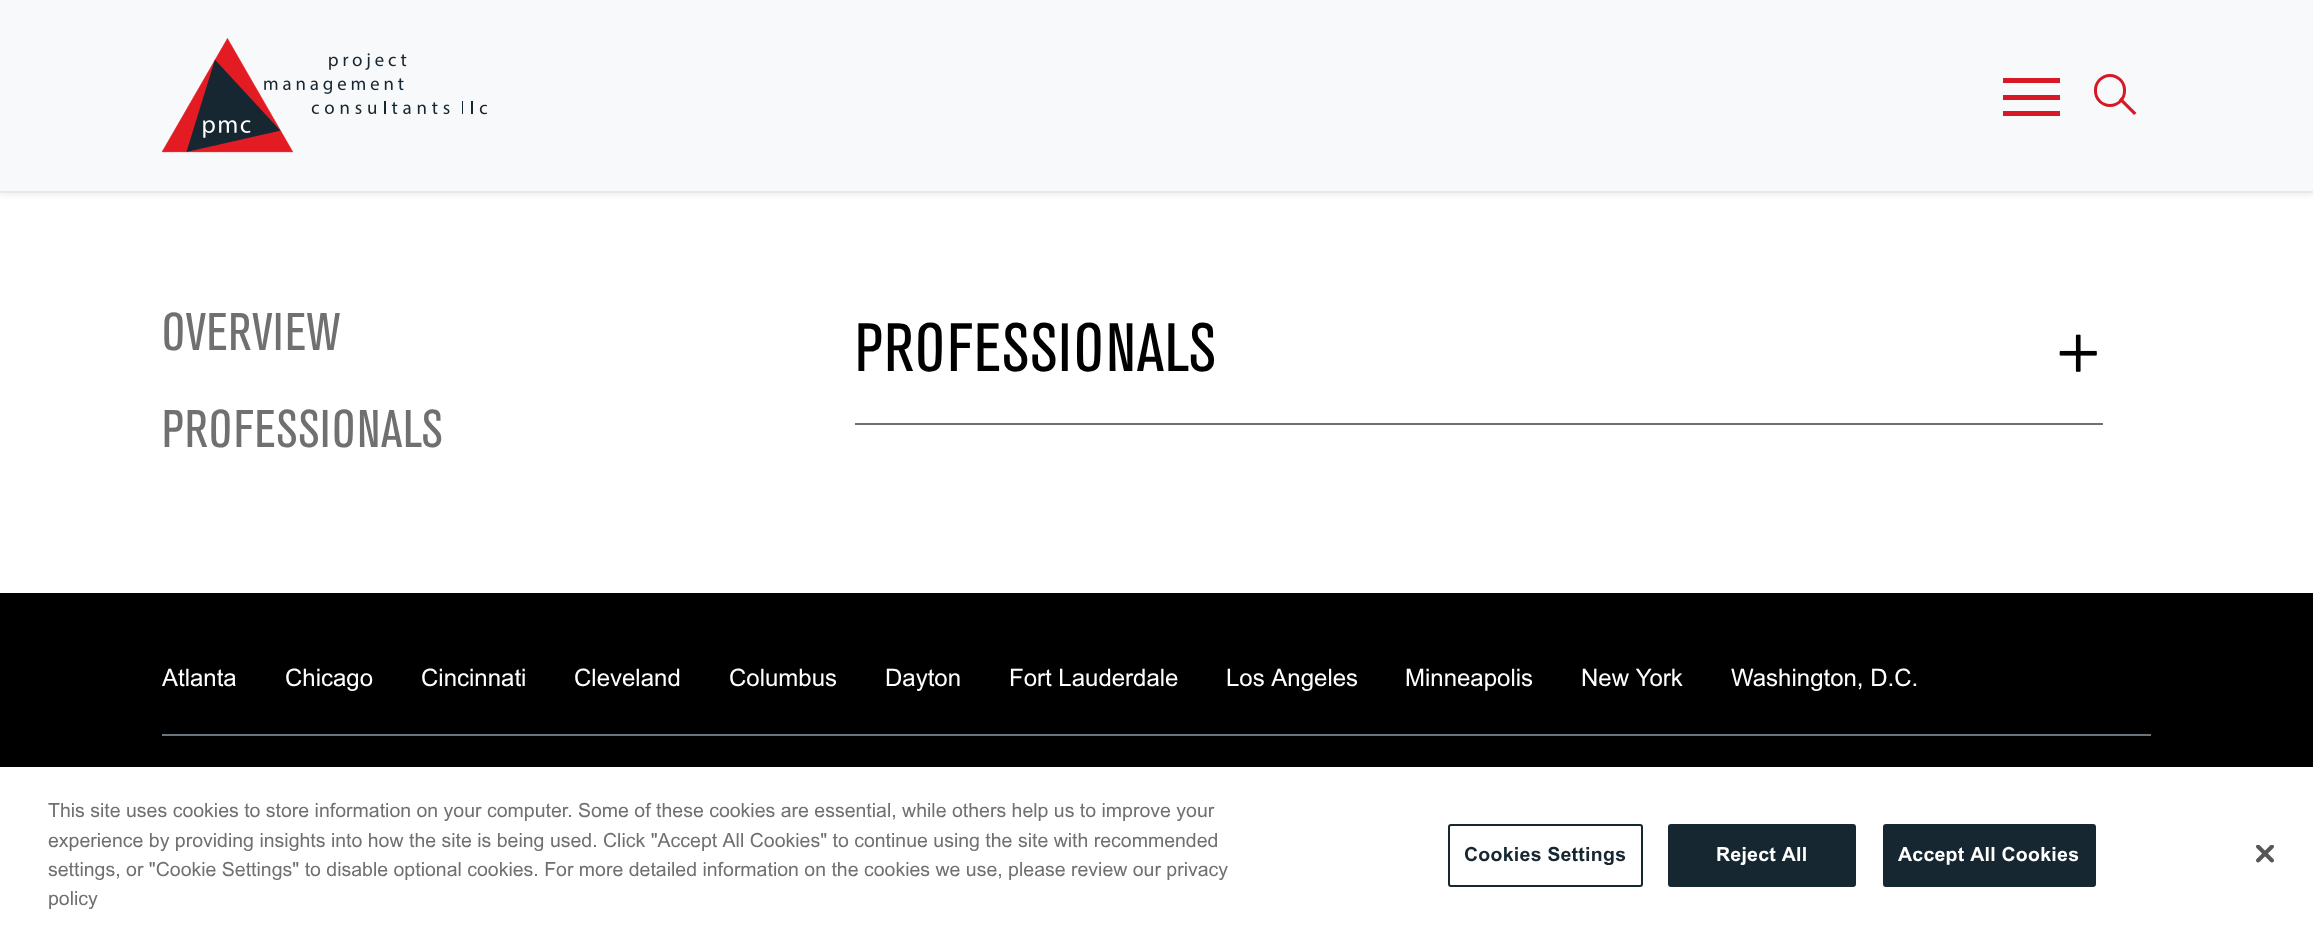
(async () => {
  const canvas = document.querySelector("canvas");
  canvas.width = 2313;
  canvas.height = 948;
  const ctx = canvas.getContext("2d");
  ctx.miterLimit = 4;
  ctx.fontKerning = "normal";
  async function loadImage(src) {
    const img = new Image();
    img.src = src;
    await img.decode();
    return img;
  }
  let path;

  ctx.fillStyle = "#ffffff";
  ctx.fillRect(0, 0, 2313, 948);
  ctx.fillStyle = "rgba(0, 0, 0, 0.07)";
  ctx.filter = "blur(3px)";
  ctx.beginPath();
  ctx.rect(0, 3, 2313, 192);
  ctx.fill();
  ctx.filter = "none";
  ctx.fillStyle = "#f8f9fa";
  ctx.fillRect(0, 0, 2313, 191);
  ctx.fillStyle = "#e8e8e8";
  ctx.fillRect(0, 191, 2313, 2);
  ctx.drawImage(await loadImage("img/1.png"), 162, 38, 325, 115);
  for (const [x, y, w, h, color] of [
    [2003, 78, 57, 5, "#d71825"],
    [2003, 95, 57, 5, "#d71825"],
    [2003, 111, 57, 5, "#d71825"],
  ]) {
    ctx.fillStyle = color;
    ctx.fillRect(x, y, w, h);
  }
  ctx.beginPath();
  ctx.roundRect(2095.5, 75.5, 29, 30, 14.5);
  ctx.strokeStyle = "#d71825";
  ctx.lineWidth = 3;
  ctx.stroke();
  path = new Path2D("M2121 97.5L2136.5 113L2134 115L2119 100Z");
  ctx.fill(path);
  ctx.fillStyle = "#707070";
  ctx.fillRect(855, 423, 1248, 2);
  ctx.drawImage(await loadImage("img/2.png"), 2059, 334, 38, 38);
  ctx.fillStyle = "#000000";
  ctx.fillRect(0, 593, 2313, 174);
  ctx.fillStyle = "#6a747a";
  ctx.fillRect(162, 734, 1989, 2);
  ctx.fillStyle = "rgba(0, 0, 0, 0.2)";
  ctx.filter = "blur(13.5px)";
  ctx.beginPath();
  ctx.rect(0, 767, 2313, 181);
  ctx.fill();
  ctx.filter = "none";
  ctx.fillStyle = "#ffffff";
  ctx.fillRect(0, 767, 2313, 181);
  ctx.beginPath();
  ctx.roundRect(1449, 825, 193, 61, 2);
  ctx.strokeStyle = "#162731";
  ctx.lineWidth = 2;
  ctx.stroke();
  ctx.fillStyle = "#162731";
  ctx.beginPath();
  ctx.roundRect(1669, 825, 186, 61, 2);
  ctx.fill();
  ctx.stroke();
  ctx.beginPath();
  ctx.roundRect(1884, 825, 211, 61, 2);
  ctx.fill();
  ctx.stroke();
  ctx.drawImage(await loadImage("img/3.png"), 2256, 845, 18, 18);
  ctx.font = "52.5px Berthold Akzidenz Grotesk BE";
  ctx.fillStyle = "#707070";
  ctx.fillText("OVERVIEW", 162, 350);
  ctx.fillText("PROFESSIONALS", 162, 447);
  ctx.font = "67.5px Berthold Akzidenz Grotesk BE";
  ctx.fillStyle = "#000000";
  ctx.fillText("PROFESSIONALS", 855, 371);
  ctx.font = "24px Arial";
  ctx.fillStyle = "#ffffff";
  for (const [text, x, y] of [
    ["Atlanta", 162, 686],
    ["Chicago", 285, 686],
    ["Cincinnati", 421, 686],
    ["Cleveland", 574, 686],
    ["Columbus", 729, 686],
    ["Dayton", 885, 686],
    ["Fort Lauderdale", 1009, 686],
    ["Los Angeles", 1226, 686],
    ["Minneapolis", 1405, 686],
    ["New York", 1581, 686],
    ["Washington, D.C.", 1731, 686],
  ]) {
    ctx.fillText(text, x, y);
  }
  ctx.font = "19.5px Arial";
  ctx.fillStyle = "#707070";
  for (const [text, x, y] of [
    ["This site uses cookies to store information on your computer. Some of these cookies are essential, while others help us to improve your", 48, 817],
    ["experience by providing insights into how the site is being used. Click \"Accept All Cookies\" to continue using the site with recommended", 48, 847],
    ["settings, or \"Cookie Settings\" to disable optional cookies. For more detailed information on the cookies we use, please review our privacy", 48, 876],
    ["policy", 48, 905],
  ]) {
    ctx.fillText(text, x, y);
  }
  ctx.letterSpacing = "0.25px";
  ctx.font = "bold 19.5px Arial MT";
  ctx.fillStyle = "#162731";
  ctx.fillText("Cookies Settings", 1464, 861);
  ctx.fillStyle = "#ffffff";
  ctx.fillText("Reject All", 1716, 861);
  ctx.fillText("Accept All Cookies", 1898, 861);
})();
